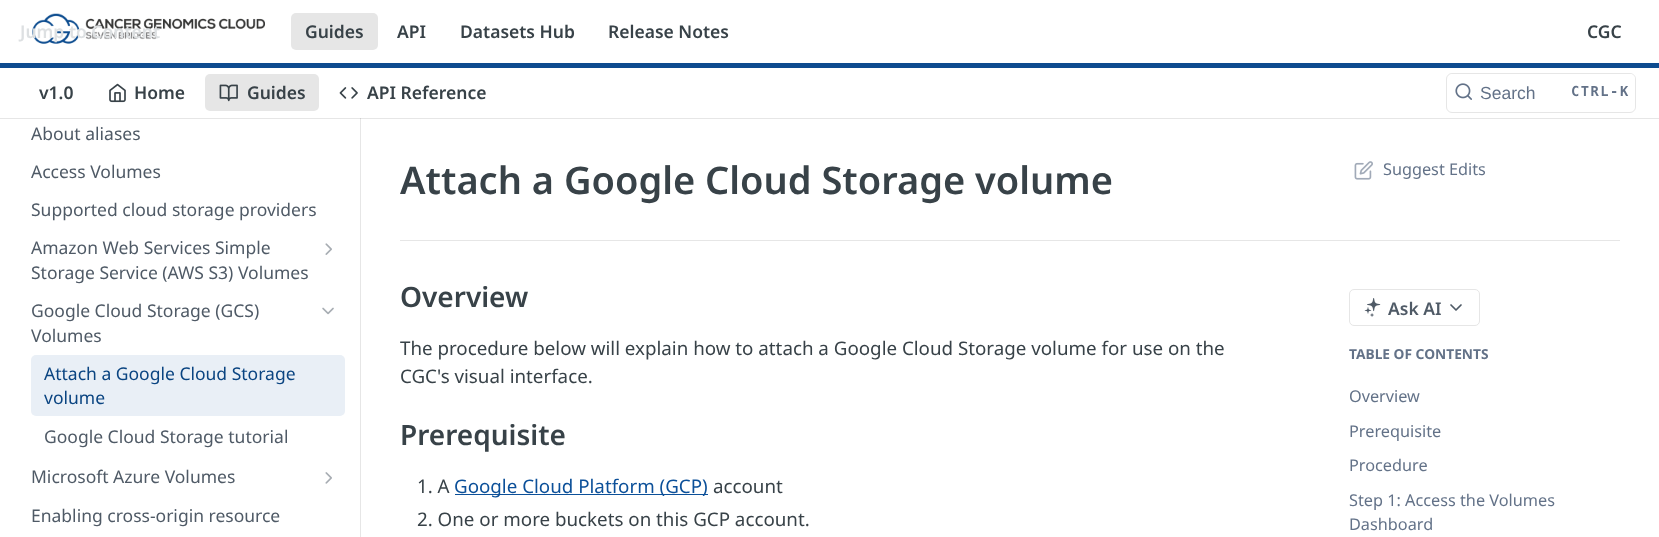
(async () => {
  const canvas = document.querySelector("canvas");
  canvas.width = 1659;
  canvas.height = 537;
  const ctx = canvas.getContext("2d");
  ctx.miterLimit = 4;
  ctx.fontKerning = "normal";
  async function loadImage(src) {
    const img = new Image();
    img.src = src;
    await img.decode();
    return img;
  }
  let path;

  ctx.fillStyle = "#ffffff";
  ctx.fillRect(0, 0, 1659, 537);
  ctx.fillStyle = "#e6e6e6";
  ctx.fillRect(0, 118, 1659, 1);
  ctx.fillStyle = "#0e4b8f";
  ctx.fillRect(0, 63, 1659, 5);
  ctx.drawImage(await loadImage("img/1.png"), 32, 13, 233, 31);
  ctx.fillStyle = "#e6e6e6";
  ctx.beginPath();
  ctx.roundRect(291, 13, 87, 37, 5);
  ctx.fill();
  ctx.drawImage(await loadImage("img/2.png"), 109, 83, 17, 20);
  ctx.beginPath();
  ctx.roundRect(205, 74, 114, 37, 5);
  ctx.fill();
  ctx.drawImage(await loadImage("img/3.png"), 219, 84, 19, 18);
  ctx.drawImage(await loadImage("img/4.png"), 339, 87, 19, 12);
  ctx.beginPath();
  ctx.roundRect(1446.5, 73.5, 189, 39, 5.5);
  ctx.strokeStyle = "#e6e6e6";
  ctx.stroke();
  ctx.fillStyle = "#ffffff";
  ctx.beginPath();
  ctx.roundRect(1448, 74, 187, 37, 5);
  ctx.fill();
  ctx.drawImage(await loadImage("img/5.png"), 1455, 83, 17, 17);
  ctx.fillStyle = "#e6e6e6";
  ctx.fillRect(360, 118, 1, 419);
  ctx.fillStyle = "#cfcfcf";
  ctx.fillRect(360, 118, 1, 1);
  ctx.drawImage(await loadImage("img/6.png"), 325, 243, 7, 12);
  ctx.drawImage(await loadImage("img/7.png"), 322, 307, 12, 8);
  ctx.fillStyle = "#e9eff6";
  ctx.beginPath();
  ctx.roundRect(31, 355, 314, 61, 5);
  ctx.fill();
  ctx.drawImage(await loadImage("img/8.png"), 325, 472, 7, 12);
  ctx.fillStyle = "#e6e6e6";
  ctx.fillRect(400, 240, 1220, 1);
  ctx.drawImage(await loadImage("img/9.png"), 1354, 161, 19, 19);
  ctx.fillStyle = "#0c5099";
  ctx.fillRect(455, 494, 253, 1);
  ctx.beginPath();
  ctx.roundRect(1349.5, 289.5, 130, 36, 4.5);
  ctx.stroke();
  ctx.drawImage(await loadImage("img/10.png"), 1364, 298, 17, 19);
  path = new Path2D("M1451 305L1456 310L1461 305");
  ctx.strokeStyle = "#4f5a66";
  ctx.lineWidth = 1.7;
  ctx.lineCap = "round";
  ctx.lineJoin = "round";
  ctx.stroke(path);
  ctx.font = "600 17.5px Noto Sans";
  ctx.fillStyle = "#dde0e2";
  ctx.fillText("Jump to Content", 20, 38);
  ctx.fillStyle = "#384248";
  for (const [text, x, y] of [
    ["Guides", 305, 38],
    ["API", 397, 38],
    ["Datasets Hub", 460, 38],
    ["Release Notes", 608, 38],
    ["CGC", 1587, 38],
    ["v1.0", 39, 99],
    ["Home", 134, 99],
    ["Guides", 247, 99],
    ["API Reference", 367, 99],
  ]) {
    ctx.fillText(text, x, y);
  }
  ctx.font = "17.5px Liberation Sans";
  ctx.fillStyle = "#637288";
  ctx.fillText("Search", 1480, 99);
  ctx.letterSpacing = "1.5px";
  ctx.font = "bold 13.75px DejaVu Sans Mono";
  ctx.fillText("CTRL-K", 1571, 96);
  ctx.letterSpacing = "0px";
  ctx.font = "17.5px Noto Sans";
  ctx.fillStyle = "#4f5a66";
  for (const [text, x, y] of [
    ["About aliases", 31, 140],
    ["Access Volumes", 31, 178],
    ["Supported cloud storage providers", 31, 216],
    ["Amazon Web Services Simple", 31, 254],
    ["Storage Service (AWS S3) Volumes", 31, 279],
    ["Google Cloud Storage (GCS)", 31, 317],
    ["Volumes", 31, 342],
  ]) {
    ctx.fillText(text, x, y);
  }
  ctx.fillStyle = "#0a4481";
  ctx.fillText("Attach a Google Cloud Storage", 44, 380);
  ctx.fillText("volume", 44, 404);
  ctx.fillStyle = "#4f5a66";
  for (const [text, x, y] of [
    ["Google Cloud Storage tutorial", 44, 443],
    ["Microsoft Azure Volumes", 31, 483],
    ["Enabling cross-origin resource", 31, 522],
  ]) {
    ctx.fillText(text, x, y);
  }
  ctx.font = "600 38px Noto Sans";
  ctx.fillStyle = "#384248";
  ctx.fillText("Attach a Google Cloud Storage volume", 400, 194);
  ctx.font = "16.25px Noto Sans";
  ctx.fillStyle = "#637288";
  ctx.fillText("Suggest Edits", 1383, 175);
  ctx.font = "600 28px Noto Sans";
  ctx.fillStyle = "#384248";
  ctx.fillText("Overview", 400, 307);
  ctx.font = "18.75px Noto Sans";
  ctx.fillText("The procedure below will explain how to attach a Google Cloud Storage volume for use on the", 400, 355);
  ctx.fillText("CGC's visual interface.", 400, 383);
  ctx.font = "600 28px Noto Sans";
  ctx.fillText("Prerequisite", 400, 445);
  ctx.font = "18.75px Noto Sans";
  ctx.fillText("1. A", 417, 493);
  ctx.fillStyle = "#0c5099";
  ctx.fillText("Google Cloud Platform (GCP)", 454, 493);
  ctx.fillStyle = "#384248";
  ctx.fillText("account", 713, 493);
  ctx.fillText("2. One or more buckets on this GCP account.", 417, 526);
  ctx.font = "600 17.5px Noto Sans";
  ctx.fillStyle = "#4f5a66";
  ctx.fillText("Ask AI", 1388, 315);
  ctx.font = "bold 13.75px Noto Sans";
  ctx.fillStyle = "#637288";
  ctx.fillText("TABLE OF CONTENTS", 1349, 359);
  ctx.font = "16.25px Noto Sans";
  for (const [text, x, y] of [
    ["Overview", 1349, 402],
    ["Prerequisite", 1349, 437],
    ["Procedure", 1349, 471],
    ["Step 1: Access the Volumes", 1349, 506],
    ["Dashboard", 1349, 530],
  ]) {
    ctx.fillText(text, x, y);
  }
})();
